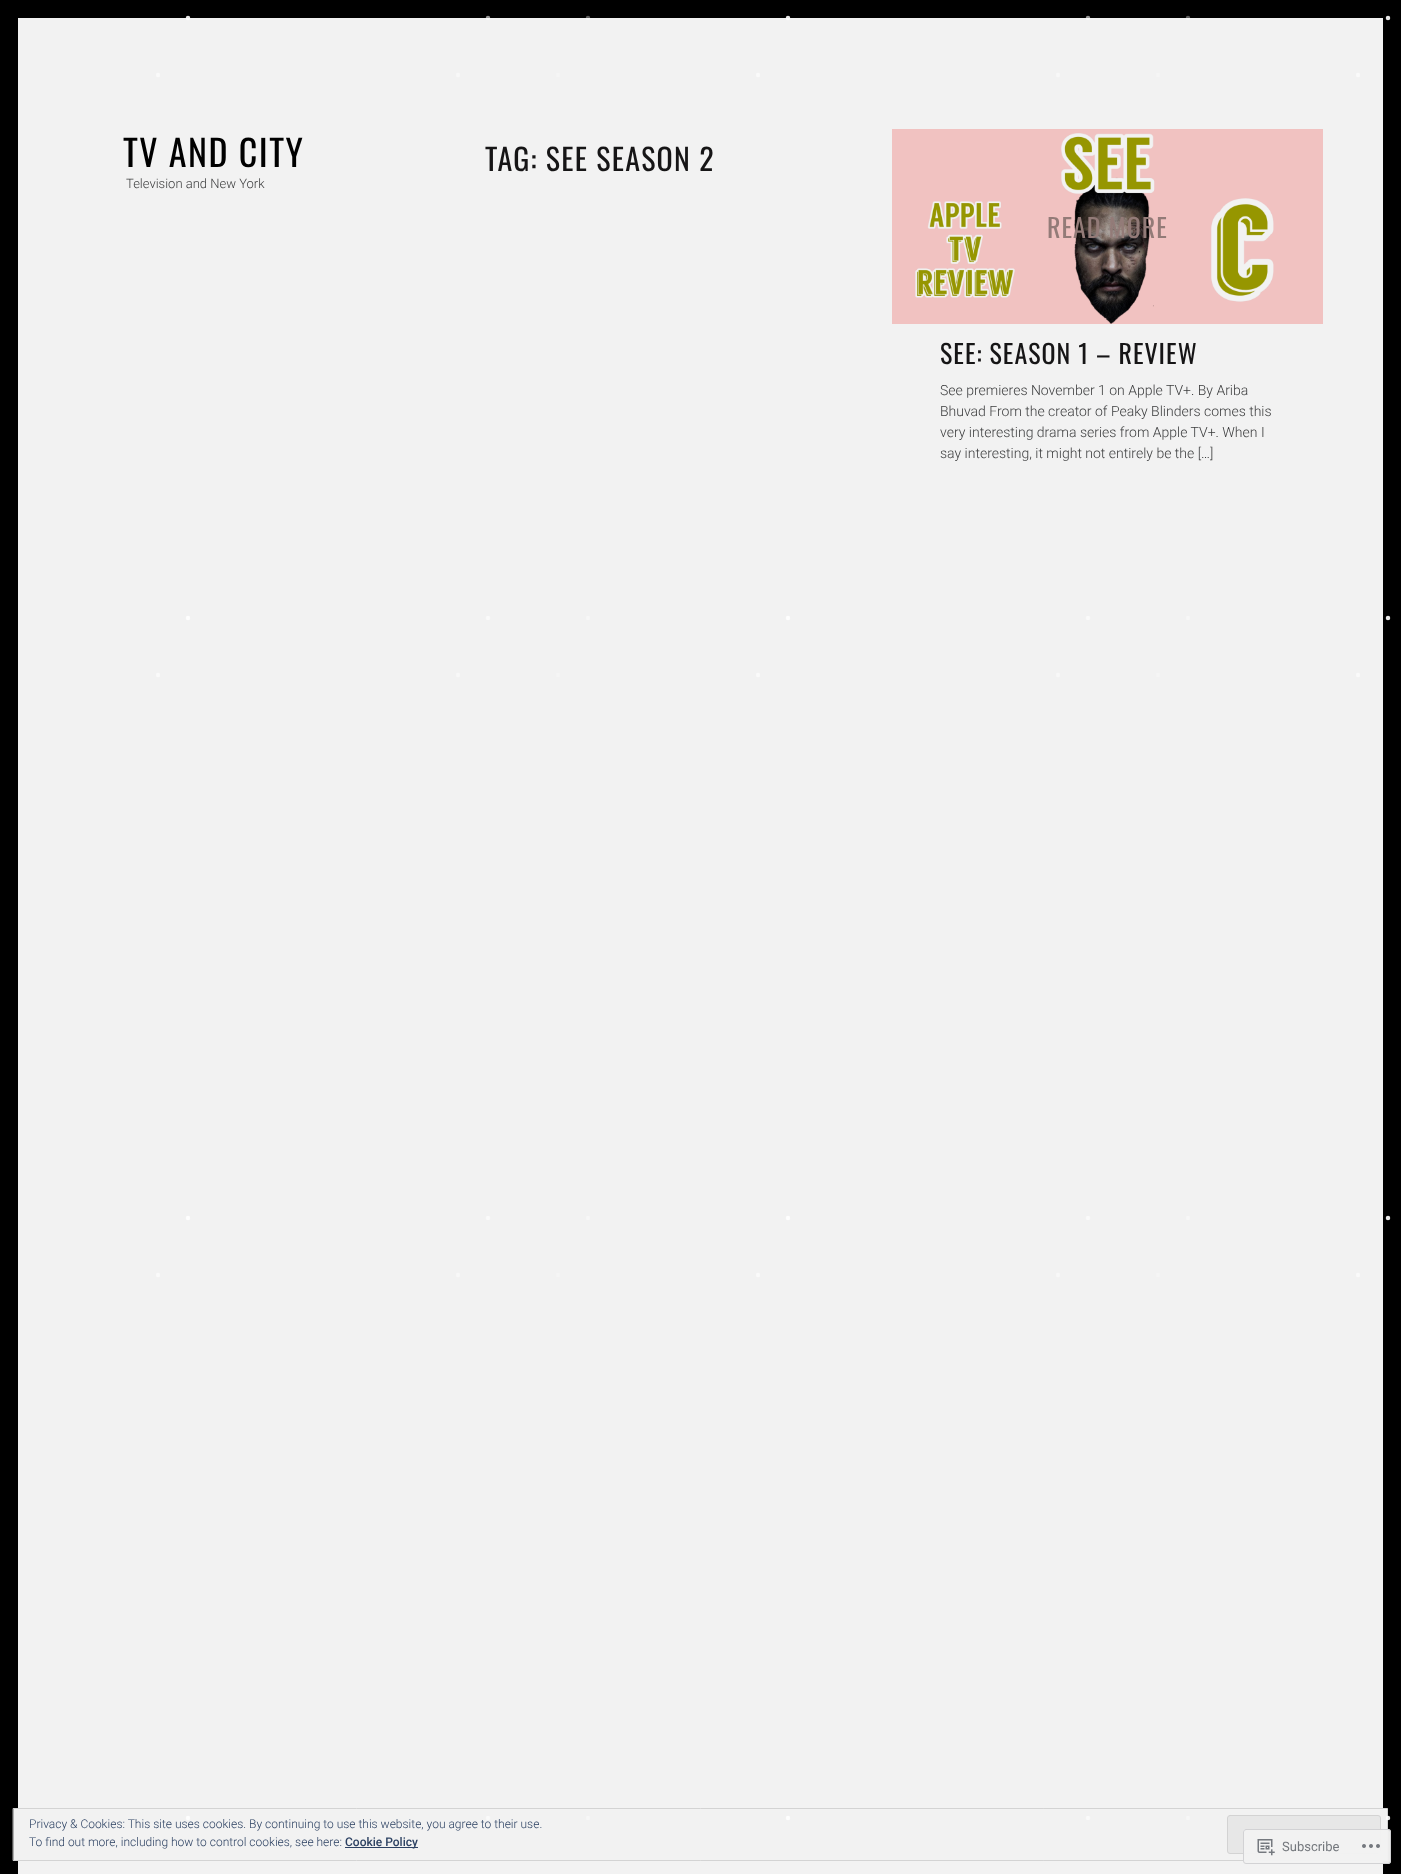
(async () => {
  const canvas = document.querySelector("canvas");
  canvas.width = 1401;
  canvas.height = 1874;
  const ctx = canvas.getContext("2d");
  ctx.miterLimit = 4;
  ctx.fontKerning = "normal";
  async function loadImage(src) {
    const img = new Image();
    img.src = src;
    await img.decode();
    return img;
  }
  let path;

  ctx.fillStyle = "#f2f2f2";
  ctx.fillRect(0, 0, 1401, 1874);
  for (const [x, y, w, h, color] of [
    [18, 0, 1365, 18, "#000000"],
    [1383, 0, 18, 1874, "#000000"],
    [0, 0, 18, 1874, "#000000"],
  ]) {
    ctx.fillStyle = color;
    ctx.fillRect(x, y, w, h);
  }
  path = new Path2D("M758-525V1275.2");
  ctx.strokeStyle = "#fafafa";
  ctx.lineWidth = 4.5;
  ctx.lineCap = "round";
  ctx.setLineDash([0, 600]);
  ctx.stroke(path);
  path = new Path2D("M1358-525V1275.2");
  ctx.stroke(path);
  ctx.fillStyle = "#f2f2f2";
  ctx.beginPath();
  ctx.rect(13.5, 1808.5, 1374, 52);
  ctx.fill();
  ctx.strokeStyle = "#d3d3d3";
  ctx.lineWidth = 1;
  ctx.setLineDash([]);
  ctx.stroke();
  path = new Path2D("M788-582V1818.2");
  ctx.strokeStyle = "rgba(255, 255, 255, 0.9)";
  ctx.lineWidth = 4.5;
  ctx.setLineDash([0, 600]);
  ctx.stroke(path);
  path = new Path2D("M1388-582V1818.2");
  ctx.stroke(path);
  path = new Path2D("M458-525V1275.2");
  ctx.strokeStyle = "#f8f8f8";
  ctx.stroke(path);
  ctx.drawImage(await loadImage("img/1.png"), 892, 129, 431, 195);
  ctx.fillStyle = "#e7e7e7";
  ctx.beginPath();
  ctx.roundRect(1227.5, 1815.5, 153, 38, 2.5);
  ctx.fill();
  ctx.strokeStyle = "#d3d3d3";
  ctx.lineWidth = 1;
  ctx.setLineDash([]);
  ctx.stroke();
  ctx.fillStyle = "#2c4162";
  ctx.fillRect(345, 1847, 73, 1);
  ctx.fillStyle = "rgba(242, 242, 242, 0.98)";
  ctx.beginPath();
  ctx.roundRect(1243, 1829, 148, 35, 3);
  ctx.fill();
  ctx.beginPath();
  ctx.roundRect(1243.5, 1829.5, 147, 34, 2.5);
  ctx.strokeStyle = "rgba(209, 209, 211, 0.98)";
  ctx.stroke();
  ctx.drawImage(await loadImage("img/2.png"), 1257, 1839, 18, 17);
  ctx.drawImage(await loadImage("img/3.png"), 1362, 1844, 18, 4);
  ctx.letterSpacing = "1.5px";
  ctx.font = "36px Oswald";
  ctx.fillStyle = "#000000";
  ctx.fillText("TV AND CITY", 123, 167);
  ctx.letterSpacing = "0px";
  ctx.font = "300 13px Roboto";
  ctx.fillStyle = "#3b3c3d";
  ctx.fillText("Television and New York", 126, 188);
  path = new Path2D("M158-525V1275.2");
  ctx.strokeStyle = "#fafafa";
  ctx.lineWidth = 4.5;
  ctx.setLineDash([0, 600]);
  ctx.stroke(path);
  ctx.letterSpacing = "1.25px";
  ctx.font = "30px Oswald";
  ctx.fillStyle = "#161516";
  ctx.fillText("TAG: SEE SEASON 2", 485, 171);
  path = new Path2D("M588-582V1818.2");
  ctx.strokeStyle = "rgba(255, 255, 255, 0.36)";
  ctx.stroke(path);
  path = new Path2D("M558-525V1275.2");
  ctx.strokeStyle = "#f5f5f5";
  ctx.stroke(path);
  ctx.letterSpacing = "1px";
  ctx.font = "26px Oswald";
  ctx.fillStyle = "#937b78";
  ctx.fillText("READ MORE", 1047, 238);
  ctx.fillStyle = "#161516";
  ctx.fillText("SEE: SEASON 1 – REVIEW", 940, 364);
  ctx.letterSpacing = "0px";
  ctx.font = "300 14px Roboto";
  ctx.fillStyle = "#3b3c3d";
  for (const [text, x, y] of [
    ["See premieres November 1 on Apple TV+. By Ariba", 940, 395],
    ["Bhuvad From the creator of Peaky Blinders comes this", 940, 416],
    ["very interesting drama series from Apple TV+. When I", 940, 437],
    ["say interesting, it might not entirely be the […]", 940, 458],
  ]) {
    ctx.fillText(text, x, y);
  }
  path = new Path2D("M1188-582V1818.2");
  ctx.strokeStyle = "rgba(255, 255, 255, 0.36)";
  ctx.stroke(path);
  path = new Path2D("M1158-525V1275.2");
  ctx.strokeStyle = "#f5f5f5";
  ctx.stroke(path);
  path = new Path2D("M1088-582V1818.2");
  ctx.strokeStyle = "rgba(255, 255, 255, 0.59)";
  ctx.stroke(path);
  path = new Path2D("M1058-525V1275.2");
  ctx.strokeStyle = "#f8f8f8";
  ctx.stroke(path);
  ctx.font = "300 12px Roboto";
  ctx.fillStyle = "#2c4162";
  ctx.fillText("Privacy & Cookies: This site uses cookies. By continuing to use this website, you agree to their use.", 29, 1828);
  path = new Path2D("M488-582V1818.2");
  ctx.strokeStyle = "rgba(255, 255, 255, 0.59)";
  ctx.stroke(path);
  path = new Path2D("M188-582V1818.2");
  ctx.strokeStyle = "rgba(255, 255, 255, 0.9)";
  ctx.stroke(path);
  ctx.fillText("To find out more, including how to control cookies, see here:", 29, 1846);
  ctx.font = "500 12px Roboto";
  ctx.fillText("Cookie Policy", 345, 1846);
  ctx.font = "13px Roboto";
  ctx.fillStyle = "#74787d";
  ctx.fillText("Subscribe", 1282, 1851);
})();
